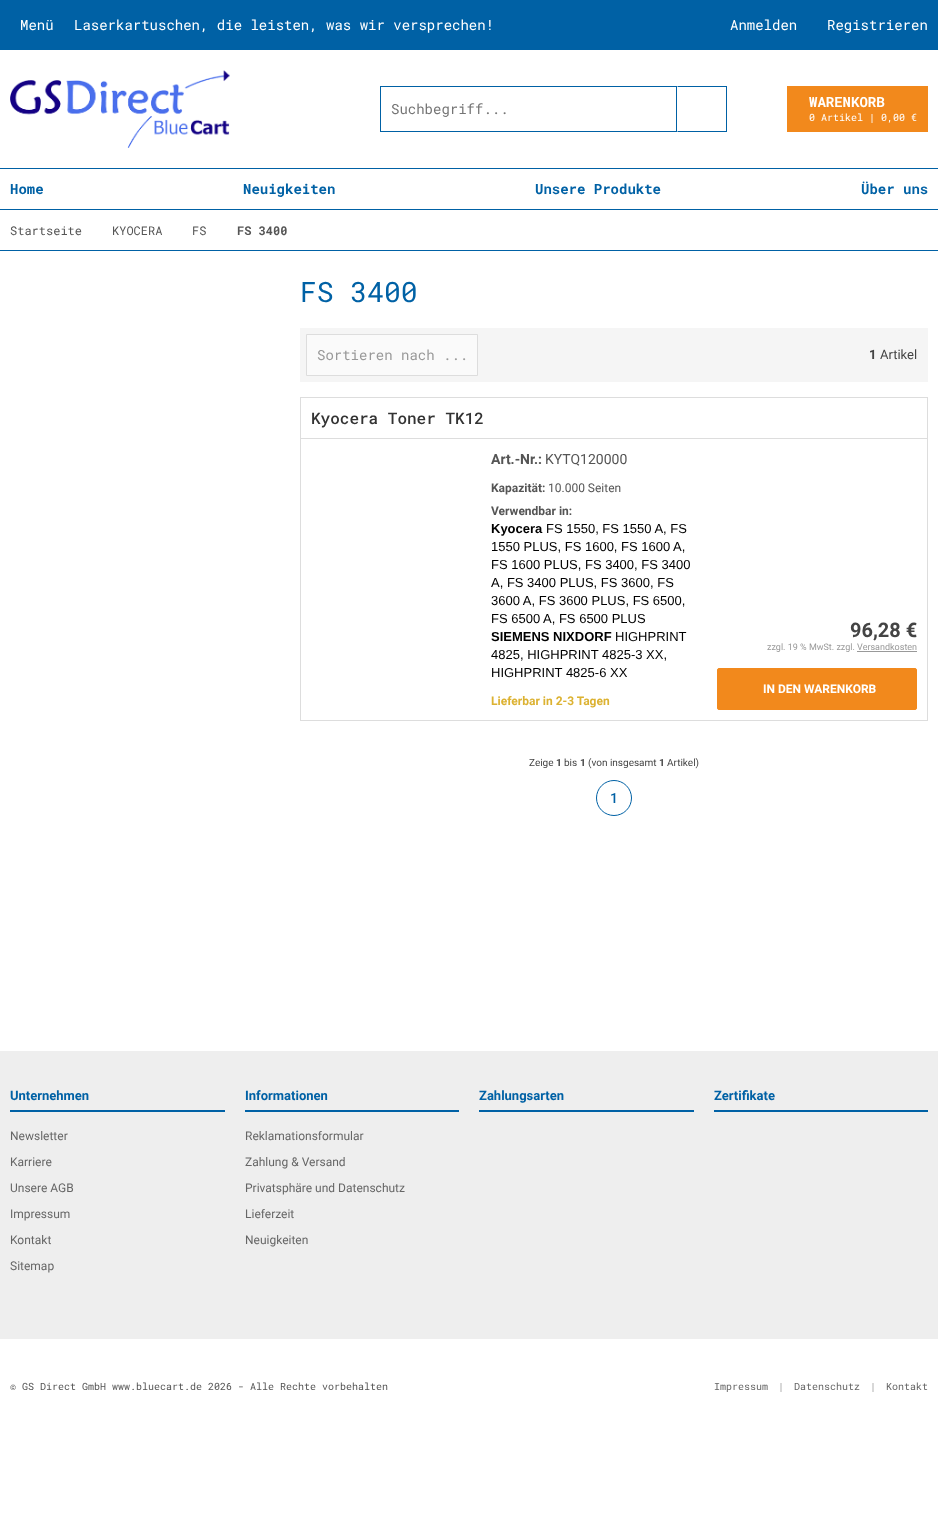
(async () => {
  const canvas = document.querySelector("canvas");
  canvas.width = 938;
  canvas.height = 1521;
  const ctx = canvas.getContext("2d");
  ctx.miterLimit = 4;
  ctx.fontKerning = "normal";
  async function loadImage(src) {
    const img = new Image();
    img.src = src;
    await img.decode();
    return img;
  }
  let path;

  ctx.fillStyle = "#ffffff";
  ctx.fillRect(0, 0, 938, 1521);
  ctx.fillStyle = "#0061a5";
  ctx.fillRect(0, 0, 938, 50);
  ctx.fillRect(0, 168, 938, 1);
  ctx.drawImage(await loadImage("img/1.png"), 10, 70, 220, 78);
  ctx.strokeStyle = "#0061a5";
  ctx.strokeRect(380.5, 86.5, 296, 45);
  path = new Path2D("M677 86H727L726 87H678Z");
  ctx.fill(path);
  ctx.fillRect(726, 86, 1, 46);
  path = new Path2D("M727 132H677L678 131H726Z");
  ctx.fill(path);
  for (const [x, y, w, h, color] of [
    [787, 86, 141, 46, "#f2891c"],
    [0, 209, 938, 1, "#0061a5"],
    [0, 250, 938, 1, "#0061a5"],
    [300, 328, 628, 54, "#f5f5f5"],
  ]) {
    ctx.fillStyle = color;
    ctx.fillRect(x, y, w, h);
  }
  ctx.fillStyle = "#fafafa";
  ctx.beginPath();
  ctx.rect(306.5, 334.5, 171, 41);
  ctx.fill();
  ctx.strokeStyle = "#dddddd";
  ctx.stroke();
  ctx.strokeRect(300.5, 397.5, 627, 323);
  ctx.fillStyle = "#dddddd";
  ctx.fillRect(301, 438, 626, 1);
  ctx.fillStyle = "#999999";
  ctx.fillRect(857, 651, 60, 1);
  ctx.fillStyle = "#f2891c";
  ctx.beginPath();
  ctx.roundRect(717.5, 668.5, 199, 41, 1.5);
  ctx.fill();
  ctx.strokeStyle = "#f2891c";
  ctx.stroke();
  ctx.beginPath();
  ctx.arc(614, 798, 17.5, 0, Math.PI * 2);
  ctx.strokeStyle = "#0061a5";
  ctx.stroke();
  for (const [x, y, w, h, color] of [
    [0, 1051, 938, 288, "#eeeeee"],
    [10, 1110, 215, 2, "#0061a5"],
    [245, 1110, 214, 2, "#0061a5"],
    [479, 1110, 215, 2, "#0061a5"],
    [714, 1110, 214, 2, "#0061a5"],
  ]) {
    ctx.fillStyle = color;
    ctx.fillRect(x, y, w, h);
  }
  ctx.font = "14px Roboto Mono";
  ctx.fillStyle = "#ffffff";
  for (const [text, x, y] of [
    ["Menü", 20, 30],
    ["Laserkartuschen, die leisten, was wir versprechen!", 74, 30],
    ["Anmelden", 730, 30],
    ["Registrieren", 827, 30],
  ]) {
    ctx.fillText(text, x, y);
  }
  ctx.fillStyle = "#757575";
  ctx.fillText("Suchbegriff...", 391, 114);
  ctx.font = "bold 14px Roboto Mono";
  ctx.fillStyle = "#ffffff";
  ctx.fillText("WARENKORB", 809, 107);
  ctx.font = "10px Roboto Mono";
  ctx.fillText("0 Artikel | 0,00 €", 809, 121);
  ctx.font = "bold 14px Roboto Mono";
  ctx.fillStyle = "#0061a5";
  for (const [text, x, y] of [
    ["Home", 10, 194],
    ["Neuigkeiten", 243, 194],
    ["Unsere Produkte", 535, 194],
    ["Über uns", 861, 194],
  ]) {
    ctx.fillText(text, x, y);
  }
  ctx.font = "12px Roboto Mono";
  ctx.fillStyle = "#555555";
  for (const [text, x, y] of [
    ["Startseite", 10, 235],
    ["KYOCERA", 112, 235],
    ["FS", 192, 235],
  ]) {
    ctx.fillText(text, x, y);
  }
  ctx.font = "bold 12px Roboto Mono";
  ctx.fillText("FS 3400", 237, 235);
  ctx.font = "28px Roboto Mono";
  ctx.fillStyle = "#0061a5";
  ctx.fillText("FS 3400", 300, 302);
  ctx.font = "14px Roboto Mono";
  ctx.fillStyle = "#999999";
  ctx.fillText("Sortieren nach ...", 317, 360);
  ctx.font = "bold 13px Roboto";
  ctx.fillStyle = "#444444";
  ctx.fillText("1", 869, 359);
  ctx.font = "13px Roboto";
  ctx.fillText("Artikel", 880, 359);
  ctx.font = "500 16px Roboto Mono";
  ctx.fillStyle = "#333333";
  ctx.fillText("Kyocera Toner TK12", 311, 424);
  ctx.font = "bold 14px Roboto";
  ctx.fillStyle = "#555555";
  ctx.fillText("Art.-Nr.:", 491, 464);
  ctx.font = "14px Roboto";
  ctx.fillText("KYTQ120000", 545, 464);
  ctx.font = "bold 12px Roboto";
  ctx.fillText("Kapazität:", 491, 492);
  ctx.font = "12px Roboto";
  ctx.fillText("10.000 Seiten", 548, 492);
  ctx.font = "bold 12px Roboto";
  ctx.fillText("Verwendbar in:", 491, 515);
  ctx.font = "bold 13px Liberation Sans";
  ctx.fillStyle = "#000000";
  ctx.fillText("Kyocera", 491, 533);
  ctx.font = "13px Liberation Sans";
  for (const [text, x, y] of [
    ["FS 1550, FS 1550 A, FS", 546, 533],
    ["1550 PLUS, FS 1600, FS 1600 A,", 491, 551],
    ["FS 1600 PLUS, FS 3400, FS 3400", 491, 569],
    ["A, FS 3400 PLUS, FS 3600, FS", 491, 587],
    ["3600 A, FS 3600 PLUS, FS 6500,", 491, 605],
    ["FS 6500 A, FS 6500 PLUS", 491, 623],
  ]) {
    ctx.fillText(text, x, y);
  }
  ctx.font = "bold 13px Liberation Sans";
  ctx.fillText("SIEMENS NIXDORF", 491, 641);
  ctx.font = "13px Liberation Sans";
  for (const [text, x, y] of [
    ["HIGHPRINT", 615, 641],
    ["4825, HIGHPRINT 4825-3 XX,", 491, 659],
    ["HIGHPRINT 4825-6 XX", 491, 677],
  ]) {
    ctx.fillText(text, x, y);
  }
  ctx.font = "bold 12px Roboto";
  ctx.fillStyle = "#dcb232";
  ctx.fillText("Lieferbar in 2-3 Tagen", 491, 705);
  ctx.font = "bold 20px Roboto";
  ctx.fillStyle = "#444444";
  ctx.fillText("96,28 €", 850, 637);
  ctx.font = "9px Roboto";
  ctx.fillStyle = "#999999";
  ctx.fillText("zzgl. 19 % MwSt. zzgl. Versandkosten", 767, 650);
  ctx.font = "bold 12px Roboto";
  ctx.fillStyle = "#ffffff";
  ctx.fillText("IN DEN WARENKORB", 763, 693);
  ctx.font = "10px Roboto";
  ctx.fillStyle = "#444444";
  ctx.fillText("Zeige", 529, 766);
  ctx.font = "bold 10px Roboto";
  ctx.fillText("1", 556, 766);
  ctx.font = "10px Roboto";
  ctx.fillText("bis", 564, 766);
  ctx.font = "bold 10px Roboto";
  ctx.fillText("1", 580, 766);
  ctx.font = "10px Roboto";
  ctx.fillText("(von insgesamt", 588, 766);
  ctx.font = "bold 10px Roboto";
  ctx.fillText("1", 659, 766);
  ctx.font = "10px Roboto";
  ctx.fillText("Artikel)", 667, 766);
  ctx.font = "500 14px Roboto";
  ctx.fillStyle = "#0061a5";
  ctx.fillText("1", 610, 803);
  ctx.font = "bold 13px Roboto";
  ctx.fillText("Unternehmen", 10, 1100);
  ctx.font = "12px Roboto";
  ctx.fillStyle = "#666666";
  for (const [text, x, y] of [
    ["Newsletter", 10, 1140],
    ["Karriere", 10, 1166],
    ["Unsere AGB", 10, 1192],
    ["Impressum", 10, 1218],
    ["Kontakt", 10, 1244],
    ["Sitemap", 10, 1270],
  ]) {
    ctx.fillText(text, x, y);
  }
  ctx.font = "bold 13px Roboto";
  ctx.fillStyle = "#0061a5";
  ctx.fillText("Informationen", 245, 1100);
  ctx.font = "12px Roboto";
  ctx.fillStyle = "#666666";
  for (const [text, x, y] of [
    ["Reklamationsformular", 245, 1140],
    ["Zahlung & Versand", 245, 1166],
    ["Privatsphäre und Datenschutz", 245, 1192],
    ["Lieferzeit", 245, 1218],
    ["Neuigkeiten", 245, 1244],
  ]) {
    ctx.fillText(text, x, y);
  }
  ctx.font = "bold 13px Roboto";
  ctx.fillStyle = "#0061a5";
  ctx.fillText("Zahlungsarten", 479, 1100);
  ctx.fillText("Zertifikate", 714, 1100);
  ctx.font = "10px Roboto Mono";
  ctx.fillStyle = "#555555";
  ctx.fillText("© GS Direct GmbH www.bluecart.de 2026 - Alle Rechte vorbehalten", 10, 1390);
  ctx.fillStyle = "#666666";
  ctx.fillText("Impressum", 714, 1390);
  ctx.fillStyle = "#999999";
  ctx.fillText("|", 778, 1390);
  ctx.fillStyle = "#666666";
  ctx.fillText("Datenschutz", 794, 1390);
  ctx.fillStyle = "#999999";
  ctx.fillText("|", 870, 1390);
  ctx.fillStyle = "#666666";
  ctx.fillText("Kontakt", 886, 1390);
})();
